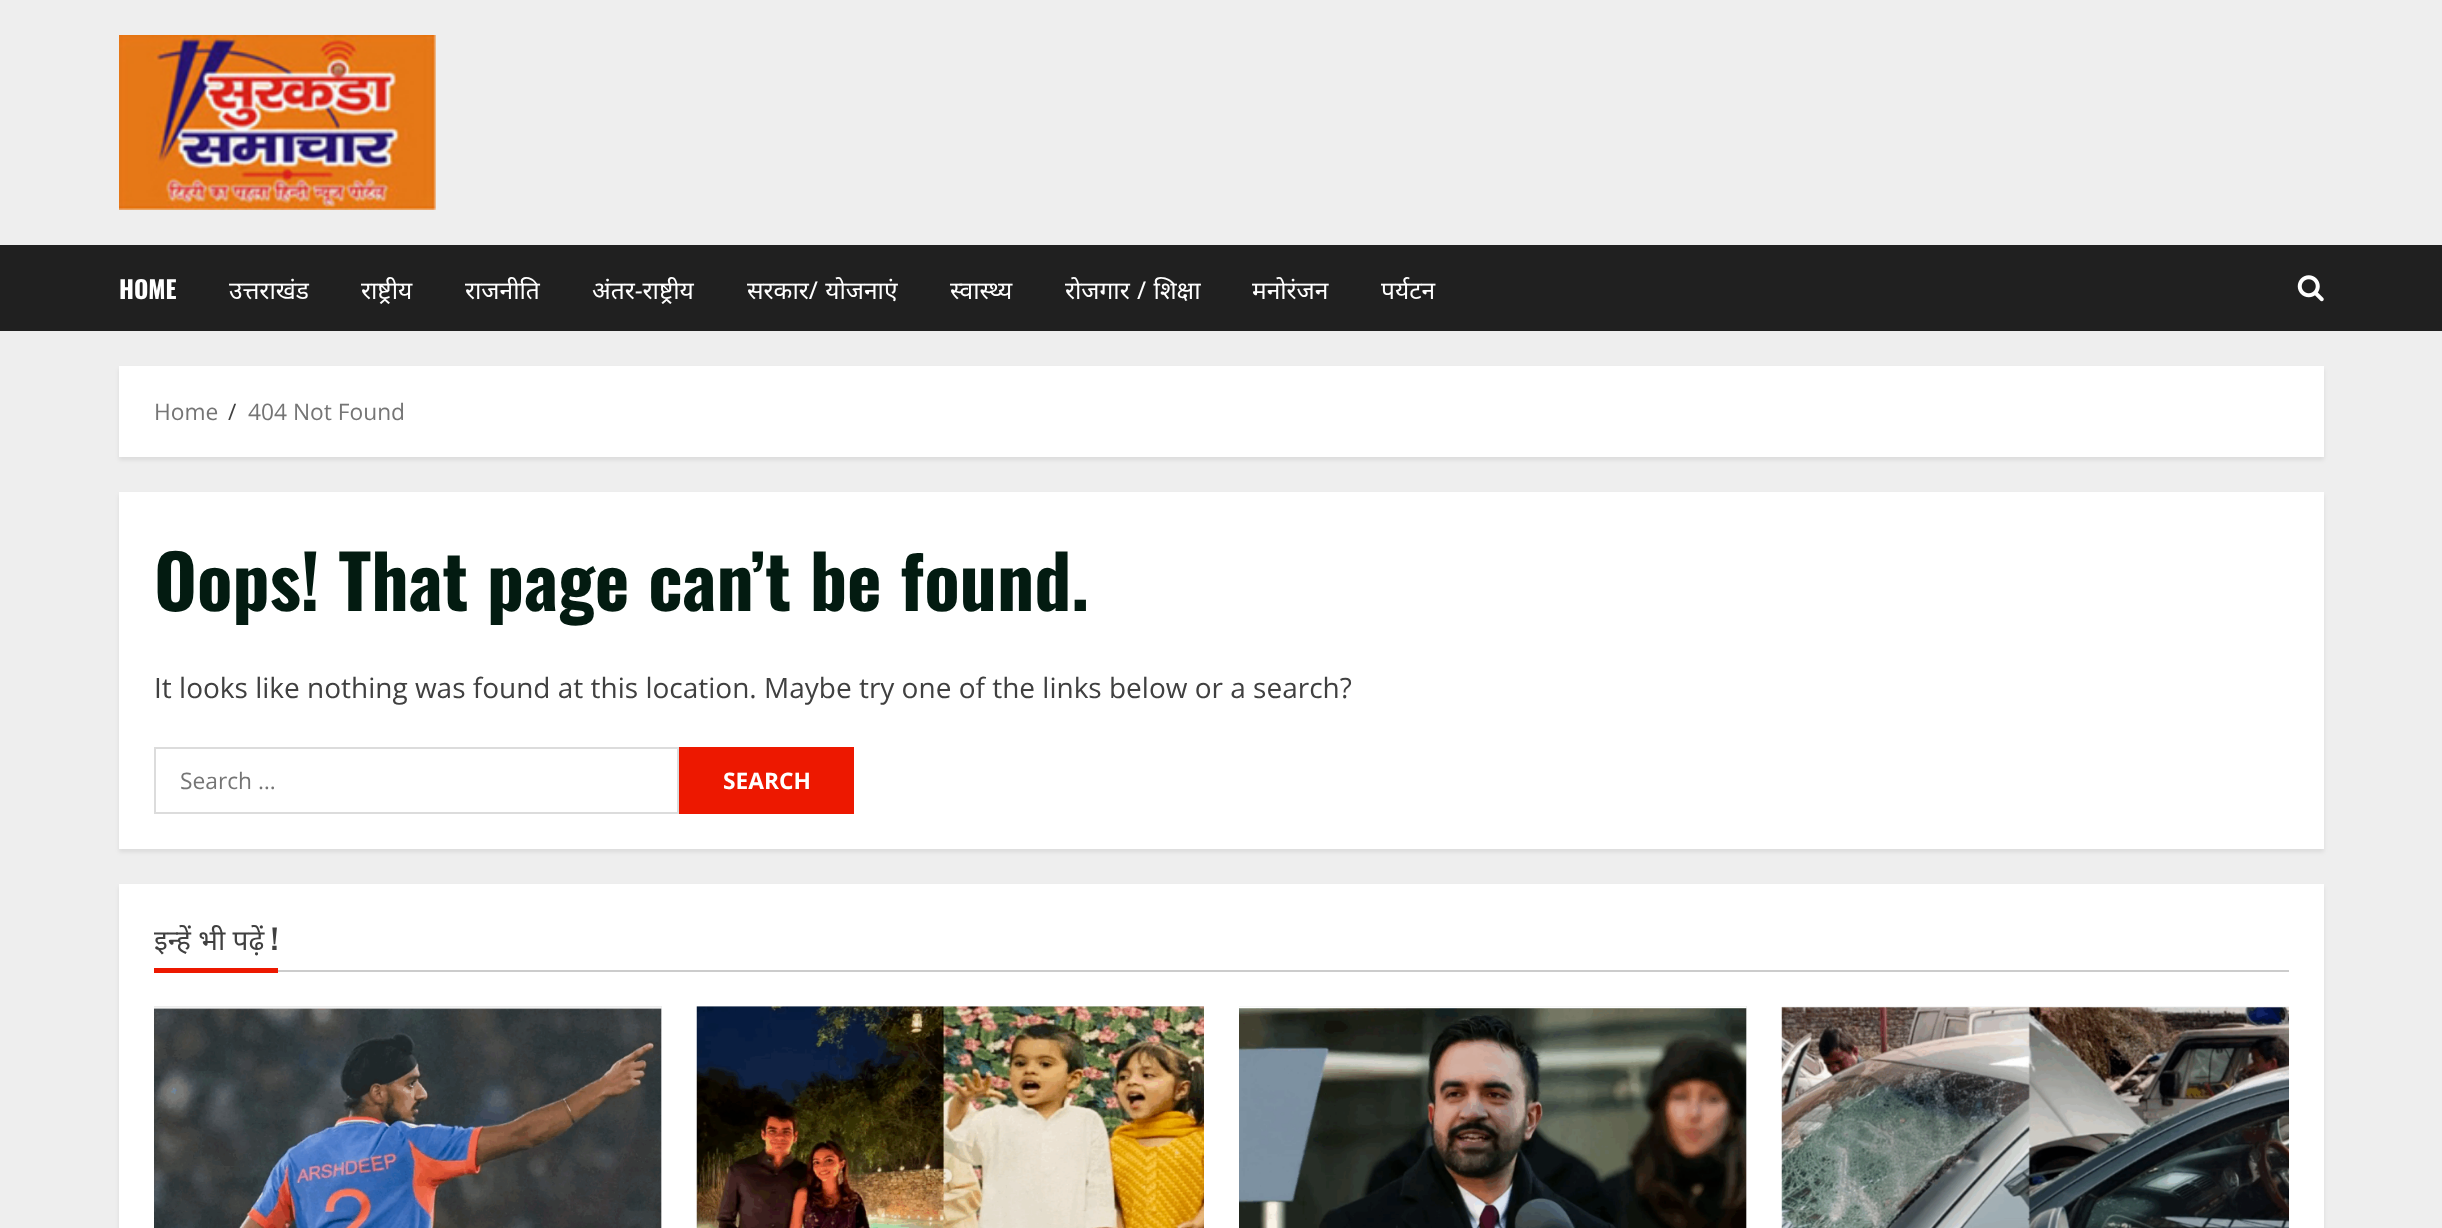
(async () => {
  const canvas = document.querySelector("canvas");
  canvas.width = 2442;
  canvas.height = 1228;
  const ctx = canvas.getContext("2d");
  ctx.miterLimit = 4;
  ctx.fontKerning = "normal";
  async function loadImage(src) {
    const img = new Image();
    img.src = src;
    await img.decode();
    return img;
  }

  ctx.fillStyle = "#eeeeee";
  ctx.fillRect(0, 0, 2442, 1228);
  ctx.drawImage(await loadImage("img/1.png"), 119, 35, 317, 175);
  ctx.fillStyle = "#202020";
  ctx.fillRect(0, 245, 2442, 86);
  ctx.drawImage(await loadImage("img/2.png"), 2297, 275, 27, 27);
  ctx.fillStyle = "rgba(0, 0, 0, 0.08)";
  ctx.filter = "blur(2px)";
  ctx.beginPath();
  ctx.rect(119, 369, 2205, 91);
  ctx.fill();
  ctx.filter = "none";
  ctx.fillStyle = "#ffffff";
  ctx.fillRect(119, 366, 2205, 91);
  ctx.fillStyle = "rgba(0, 0, 0, 0.08)";
  ctx.filter = "blur(2px)";
  ctx.beginPath();
  ctx.rect(119, 495, 2205, 357);
  ctx.fill();
  ctx.filter = "none";
  ctx.fillStyle = "#ffffff";
  ctx.fillRect(119, 492, 2205, 357);
  ctx.strokeStyle = "#dcdcdc";
  ctx.lineWidth = 2;
  ctx.strokeRect(155, 748, 523, 65);
  ctx.fillStyle = "#ed1800";
  ctx.fillRect(679, 747, 175, 67);
  ctx.fillStyle = "rgba(0, 0, 0, 0.08)";
  ctx.filter = "blur(2px)";
  ctx.beginPath();
  ctx.rect(119, 887, 2205, 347);
  ctx.fill();
  ctx.filter = "none";
  for (const [x, y, w, h, color] of [
    [119, 884, 2205, 344, "#ffffff"],
    [278, 970, 2011, 2, "#cccccc"],
    [154, 968, 124, 5, "#ed1800"],
    [154, 1006, 508, 222, "#ececec"],
  ]) {
    ctx.fillStyle = color;
    ctx.fillRect(x, y, w, h);
  }
  ctx.drawImage(await loadImage("img/3.png"), 154, 1007, 508, 221);
  ctx.fillRect(697, 1006, 507, 1);
  ctx.drawImage(await loadImage("img/4.png"), 696, 1006, 508, 222);
  ctx.fillRect(1239, 1006, 508, 222);
  ctx.drawImage(await loadImage("img/5.png"), 1239, 1006, 508, 222);
  ctx.fillRect(1782, 1006, 507, 1);
  ctx.drawImage(await loadImage("img/6.png"), 1781, 1006, 508, 222);
  ctx.font = "bold 24.5px Oswald";
  ctx.fillStyle = "#ffffff";
  ctx.fillText("HOME", 119, 299);
  ctx.font = "24.5px Noto Sans";
  for (const [text, x, y] of [
    ["उत्तराखंड", 229, 299],
    ["राष्ट्रीय", 361, 299],
    ["राजनीति", 465, 299],
    ["अंतर-राष्ट्रीय", 592, 299],
  ]) {
    ctx.fillText(text, x, y);
  }
  ctx.wordSpacing = "1px";
  ctx.fillText("सरकार/ योजनाएं", 747, 299);
  ctx.wordSpacing = "0px";
  ctx.fillText("स्वास्थ्य", 950, 299);
  ctx.wordSpacing = "1px";
  ctx.fillText("रोजगार / शिक्षा", 1065, 299);
  ctx.wordSpacing = "0px";
  ctx.fillText("मनोरंजन", 1252, 299);
  ctx.fillText("पर्यटन", 1381, 299);
  ctx.font = "22.75px Open Sans";
  ctx.fillStyle = "#757575";
  ctx.fillText("Home", 154, 420);
  ctx.fillStyle = "#404040";
  ctx.fillText("/", 228, 420);
  ctx.fillStyle = "#757575";
  ctx.fillText("404 Not Found", 248, 420);
  ctx.font = "bold 73.5px Oswald";
  ctx.fillStyle = "#031b11";
  ctx.fillText("Oops! That page can’t be found.", 154, 611);
  ctx.font = "28px Open Sans";
  ctx.fillStyle = "#404040";
  ctx.fillText("It looks like nothing was found at this location. Maybe try one of the links below or a search?", 154, 698);
  ctx.font = "22.75px Open Sans";
  ctx.fillStyle = "#757575";
  ctx.fillText("Search …", 180, 789);
  ctx.font = "bold 22.75px Open Sans";
  ctx.fillStyle = "#ffffff";
  ctx.fillText("SEARCH", 723, 789);
  ctx.font = "28px Noto Sans";
  ctx.fillStyle = "#404040";
  ctx.fillText("इन्हें भी पढ़ें", 154, 950);
  ctx.font = "bold 28px Oswald";
  ctx.fillText("!", 271, 950);
})();
